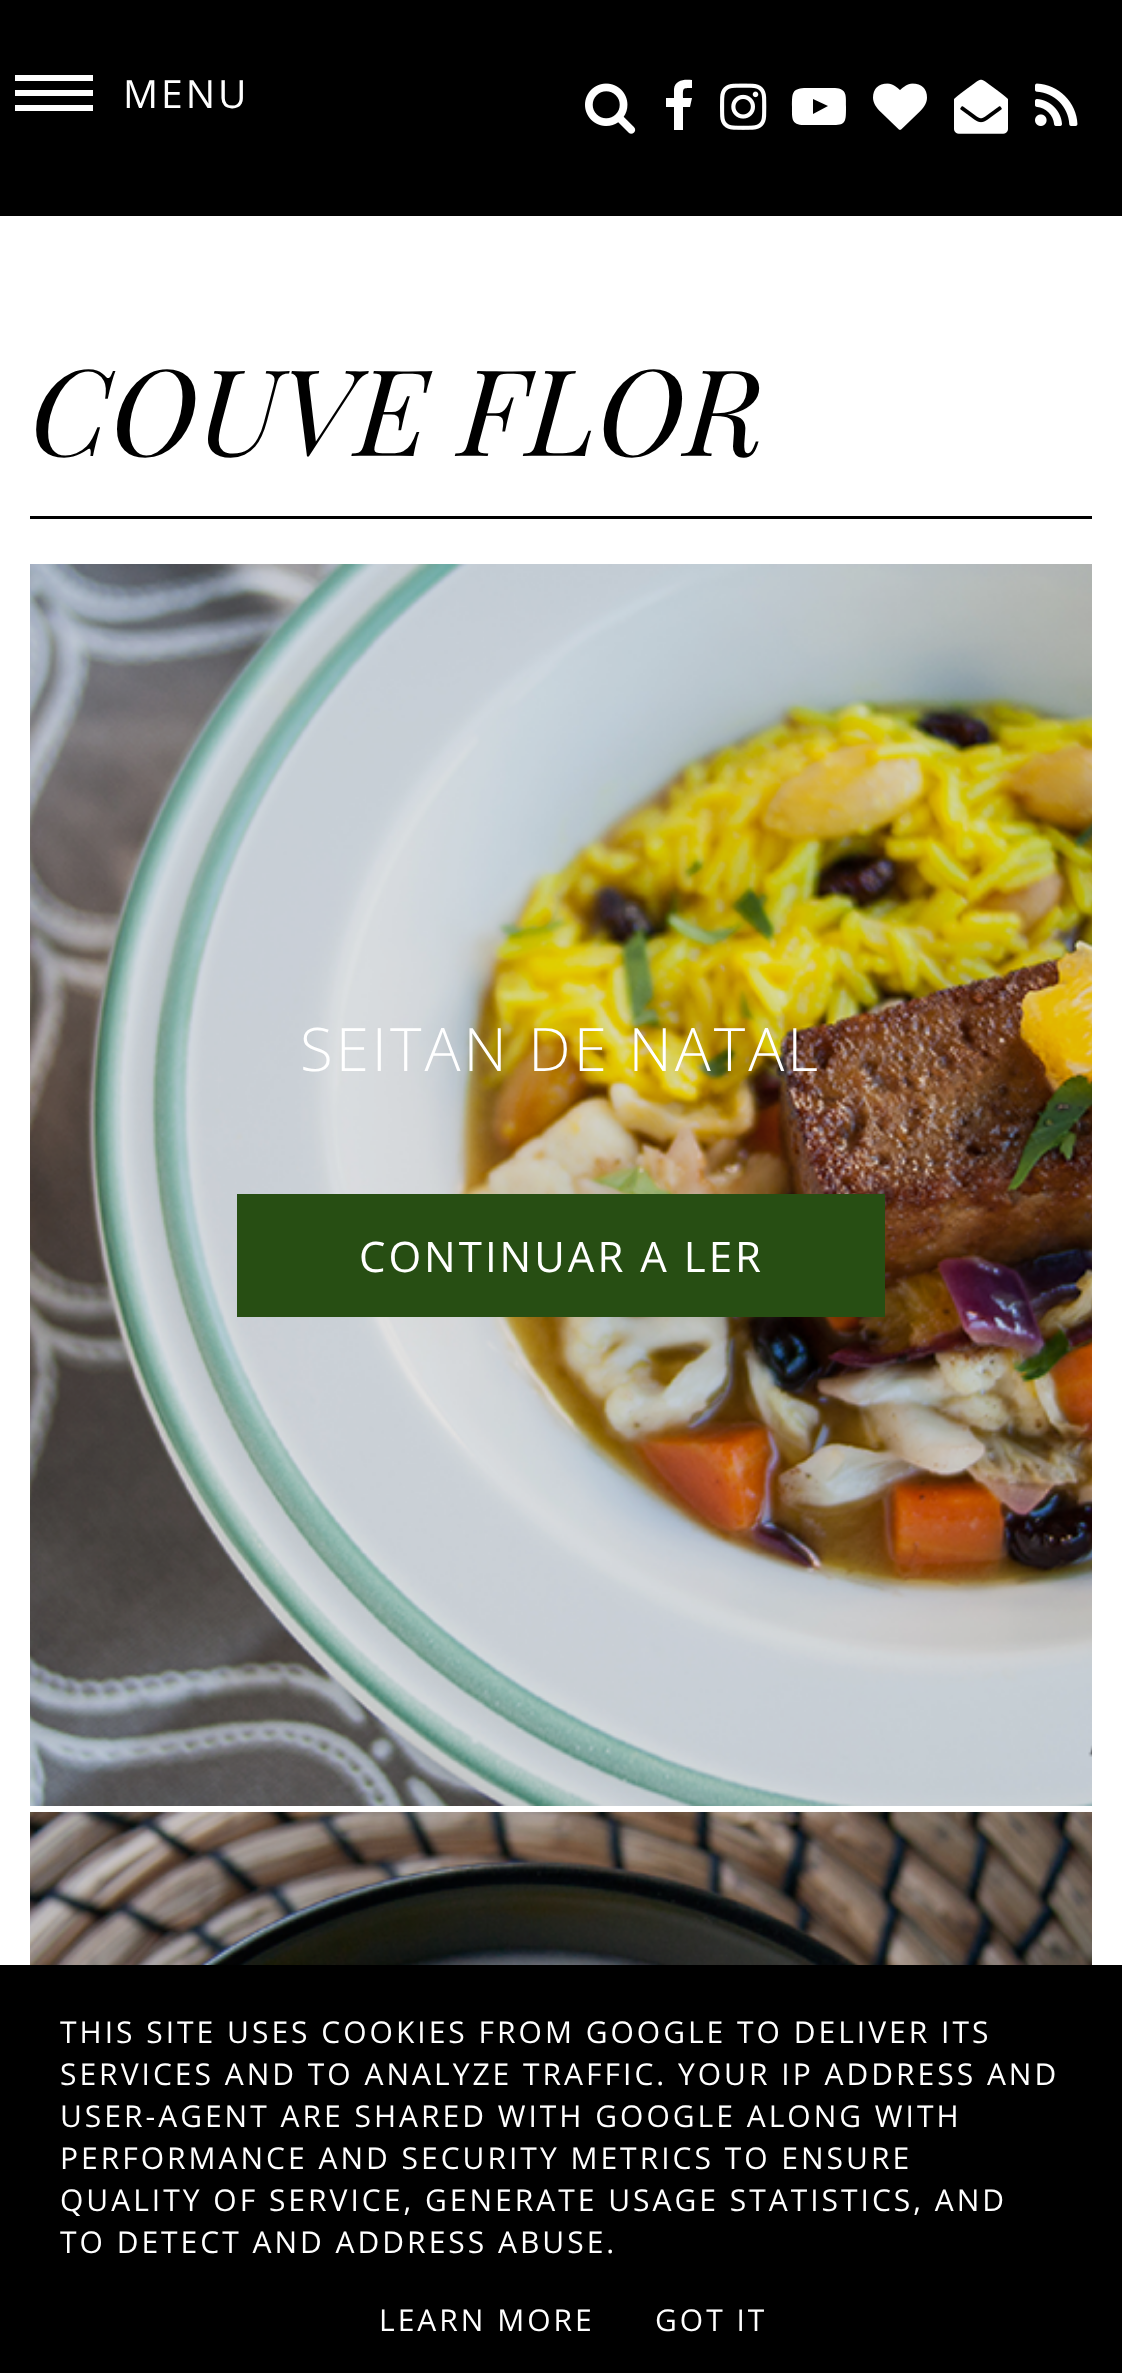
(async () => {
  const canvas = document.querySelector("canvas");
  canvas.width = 1122;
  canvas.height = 2373;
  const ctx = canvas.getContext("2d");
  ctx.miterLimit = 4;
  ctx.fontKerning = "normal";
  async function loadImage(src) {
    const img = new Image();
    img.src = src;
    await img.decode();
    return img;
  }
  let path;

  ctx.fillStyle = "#ffffff";
  ctx.fillRect(0, 0, 1122, 2373);
  for (const [x, y, w, h, color] of [
    [0, 0, 1122, 216, "#000000"],
    [15, 75, 78, 6, "#ffffff"],
    [15, 90, 78, 6, "#ffffff"],
    [15, 105, 78, 6, "#ffffff"],
  ]) {
    ctx.fillStyle = color;
    ctx.fillRect(x, y, w, h);
  }
  ctx.drawImage(await loadImage("img/1.png"), 585, 83, 51, 51);
  path = new Path2D("M692 80V88C682 88 683 88 683 98H692L690 107H683V130H674V107H666V98H674V89C675 80 684 79 692 80Z");
  ctx.fill(path);
  ctx.drawImage(await loadImage("img/2.png"), 720, 83, 47, 47);
  path = new Path2D("M813 114L828 106L813 99ZM819 88H835C847 89 846 95 846 107C846 121 846 125 834 125H804C791 125 792 118 792 107C792 93 792 89 804 88Z");
  ctx.fill(path);
  ctx.drawImage(await loadImage("img/3.png"), 873, 83, 54, 47);
  ctx.drawImage(await loadImage("img/4.png"), 954, 79, 54, 55);
  ctx.drawImage(await loadImage("img/5.png"), 1035, 83, 43, 43);
  ctx.fillStyle = "#000000";
  ctx.fillRect(30, 516, 1062, 3);
  ctx.drawImage(await loadImage("img/6.png"), 30, 564, 1062, 1242);
  ctx.fillStyle = "#274e13";
  ctx.fillRect(237, 1194, 648, 123);
  ctx.drawImage(await loadImage("img/7.png"), 30, 1812, 1062, 153);
  ctx.fillStyle = "#000000";
  ctx.fillRect(0, 1965, 1122, 408);
  ctx.letterSpacing = "3px";
  ctx.font = "39px Open Sans";
  ctx.fillStyle = "#ffffff";
  ctx.fillText("MENU", 123, 108);
  ctx.letterSpacing = "0px";
  ctx.font = "italic 120px Playfair Display";
  ctx.fillStyle = "#000000";
  ctx.fillText("COUVE FLOR", 30, 456);
  ctx.letterSpacing = "3px";
  ctx.font = "300 60px Open Sans";
  ctx.fillStyle = "#ffffff";
  ctx.fillText("SEITAN DE NATAL", 300, 1071);
  ctx.font = "42px Open Sans";
  ctx.fillText("CONTINUAR A LER", 359, 1272);
  ctx.font = "30px Open Sans";
  for (const [text, x, y] of [
    ["THIS SITE USES COOKIES FROM GOOGLE TO DELIVER ITS", 60, 2043],
    ["SERVICES AND TO ANALYZE TRAFFIC. YOUR IP ADDRESS AND", 60, 2085],
    ["USER-AGENT ARE SHARED WITH GOOGLE ALONG WITH", 60, 2127],
    ["PERFORMANCE AND SECURITY METRICS TO ENSURE", 60, 2169],
    ["QUALITY OF SERVICE, GENERATE USAGE STATISTICS, AND", 60, 2211],
    ["TO DETECT AND ADDRESS ABUSE.", 60, 2253],
    ["LEARN MORE", 379, 2331],
    ["GOT IT", 655, 2331],
  ]) {
    ctx.fillText(text, x, y);
  }
})();
